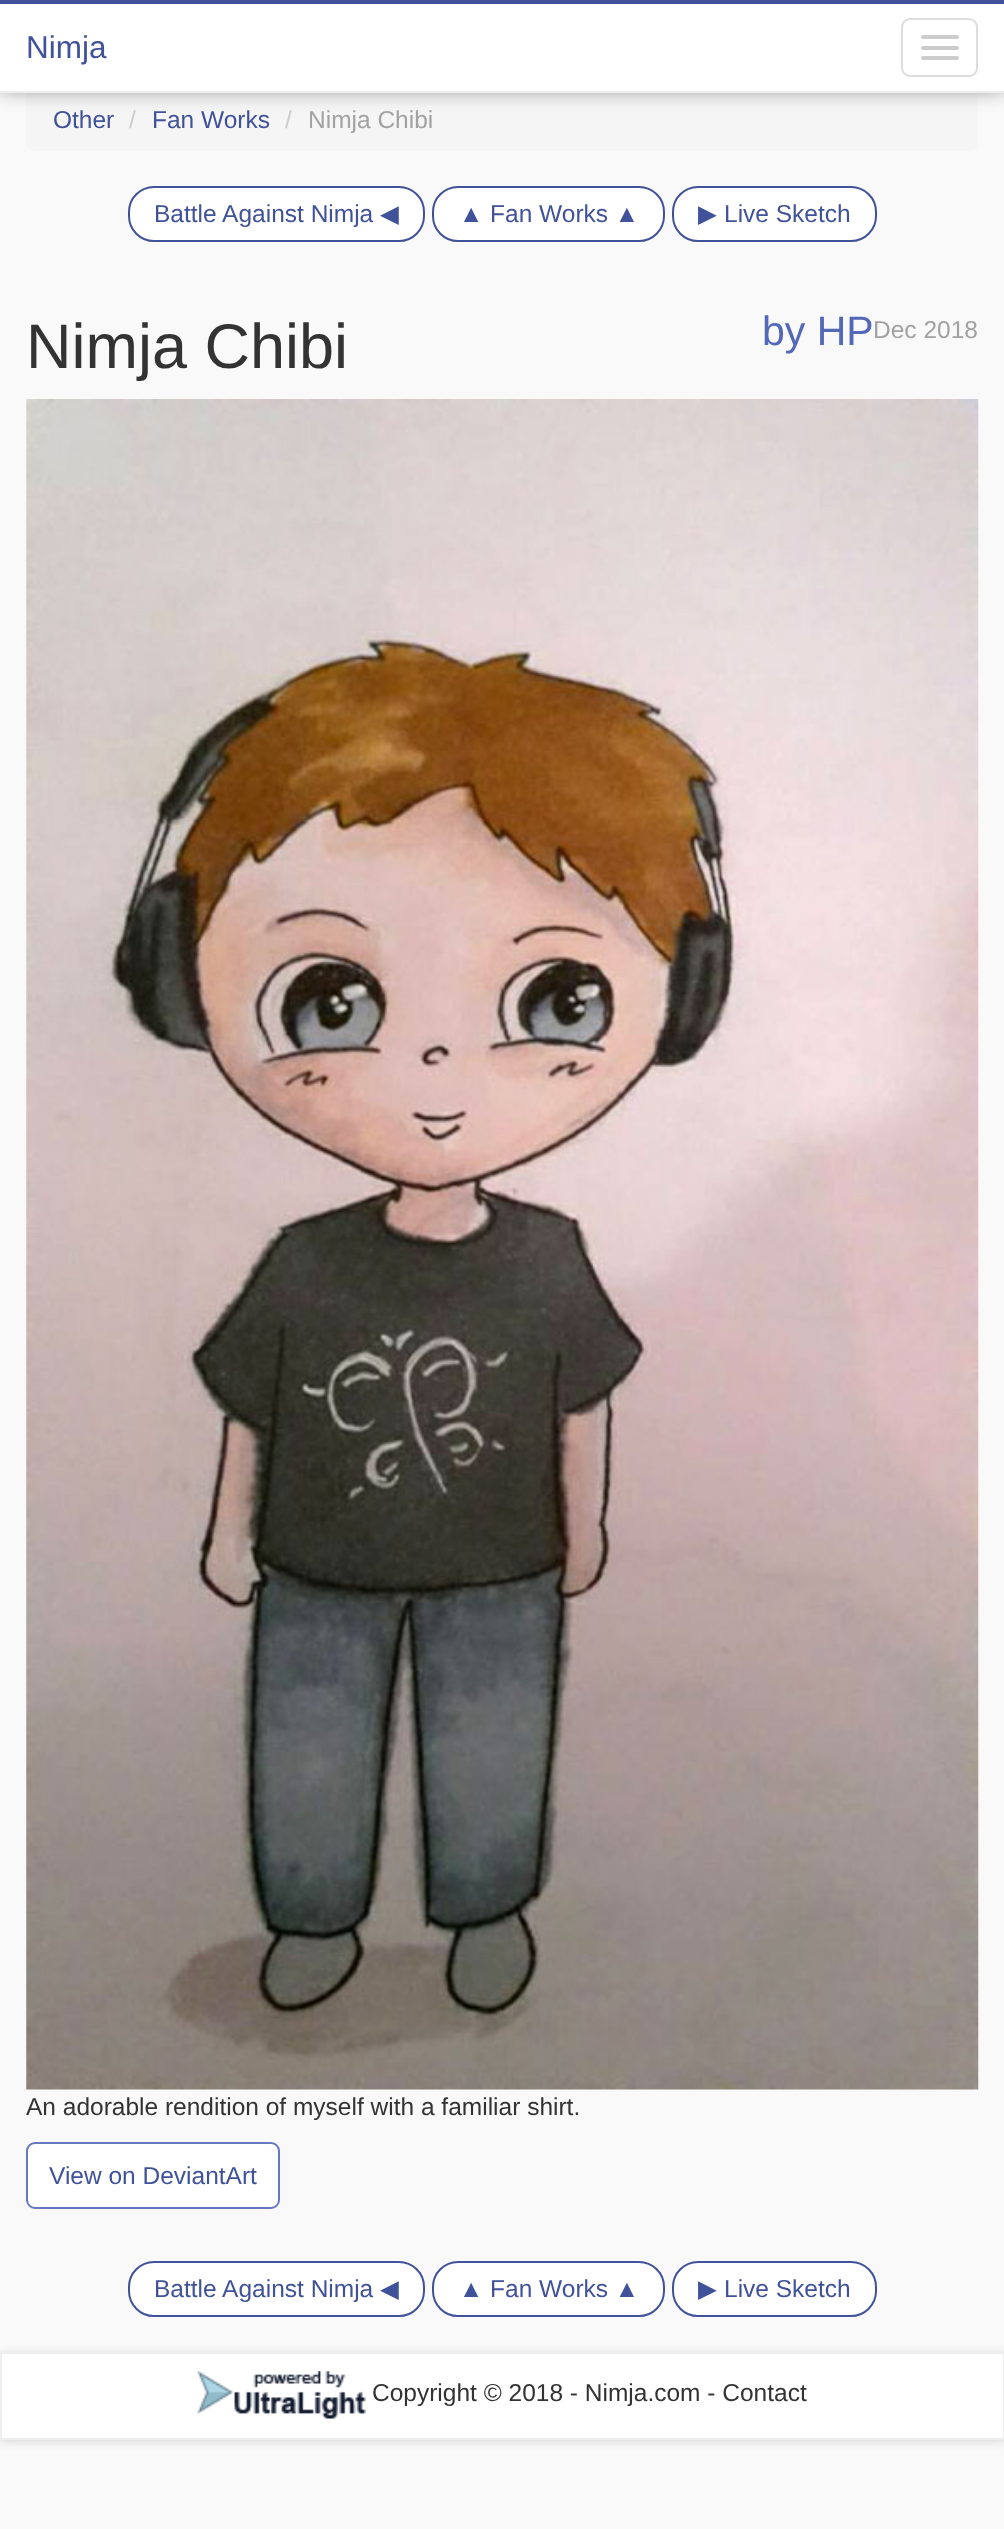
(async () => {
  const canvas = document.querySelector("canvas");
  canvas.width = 1004;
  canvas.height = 2529;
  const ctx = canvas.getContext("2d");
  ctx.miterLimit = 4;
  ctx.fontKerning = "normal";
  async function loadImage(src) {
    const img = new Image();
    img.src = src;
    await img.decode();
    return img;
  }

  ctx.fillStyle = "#f9f9f9";
  ctx.fillRect(0, 0, 1004, 2529);
  ctx.fillStyle = "#f5f5f5";
  ctx.beginPath();
  ctx.roundRect(26, 88, 952, 63, 9);
  ctx.fill();
  ctx.fillStyle = "rgba(0, 0, 0, 0.5)";
  ctx.filter = "blur(10.5px)";
  ctx.beginPath();
  ctx.rect(0, -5, 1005, 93);
  ctx.fill();
  ctx.filter = "none";
  for (const [x, y, w, h, color] of [
    [0, 4, 1004, 87, "#ffffff"],
    [0, 0, 1004, 4, "#405299"],
    [0, 91, 1004, 2, "#eeeeee"],
  ]) {
    ctx.fillStyle = color;
    ctx.fillRect(x, y, w, h);
  }
  ctx.beginPath();
  ctx.roundRect(902, 19, 75, 57, 8);
  ctx.strokeStyle = "#dddddd";
  ctx.lineWidth = 2;
  ctx.stroke();
  ctx.fillStyle = "#cccccc";
  ctx.beginPath();
  ctx.roundRect(921, 35, 38, 4, 2);
  ctx.fill();
  ctx.beginPath();
  ctx.roundRect(921, 46, 38, 4, 2);
  ctx.fill();
  ctx.beginPath();
  ctx.roundRect(921, 56, 38, 4, 2);
  ctx.fill();
  ctx.fillStyle = "#ffffff";
  ctx.beginPath();
  ctx.roundRect(129, 187, 295, 54, 25);
  ctx.fill();
  ctx.strokeStyle = "#405299";
  ctx.stroke();
  ctx.beginPath();
  ctx.roundRect(433, 187, 231, 54, 25);
  ctx.fill();
  ctx.stroke();
  ctx.beginPath();
  ctx.roundRect(673, 187, 203, 54, 25);
  ctx.fill();
  ctx.stroke();
  ctx.drawImage(await loadImage("img/1.png"), 26, 399, 953, 1691);
  ctx.beginPath();
  ctx.roundRect(27, 2143, 252, 65, 8);
  ctx.fill();
  ctx.strokeStyle = "#6678bf";
  ctx.stroke();
  ctx.beginPath();
  ctx.roundRect(129, 2262, 295, 54, 25);
  ctx.fill();
  ctx.strokeStyle = "#405299";
  ctx.stroke();
  ctx.beginPath();
  ctx.roundRect(433, 2262, 231, 54, 25);
  ctx.fill();
  ctx.stroke();
  ctx.beginPath();
  ctx.roundRect(673, 2262, 203, 54, 25);
  ctx.fill();
  ctx.stroke();
  ctx.fillStyle = "rgba(0, 0, 0, 0.15)";
  ctx.filter = "blur(5px)";
  ctx.beginPath();
  ctx.rect(0, 2354, 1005, 87);
  ctx.fill();
  ctx.filter = "none";
  ctx.fillStyle = "#ffffff";
  ctx.beginPath();
  ctx.rect(1, 2353, 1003, 86);
  ctx.fill();
  ctx.strokeStyle = "#eeeeee";
  ctx.stroke();
  ctx.drawImage(await loadImage("img/2.png"), 197, 2371, 169, 48);
  ctx.font = "31.5px Liberation Sans";
  ctx.fillStyle = "#405299";
  ctx.fillText("Nimja", 26, 58);
  ctx.font = "24.5px Liberation Sans";
  ctx.fillText("Other", 53, 128);
  ctx.fillStyle = "#cccccc";
  ctx.fillText("/", 129, 128);
  ctx.fillStyle = "#405299";
  ctx.fillText("Fan Works", 152, 128);
  ctx.fillStyle = "#cccccc";
  ctx.fillText("/", 285, 128);
  ctx.fillStyle = "#a2a2a2";
  ctx.fillText("Nimja Chibi", 308, 128);
  ctx.fillStyle = "#405299";
  ctx.fillText("Battle Against Nimja", 154, 222);
  ctx.font = "24.5px DejaVu Sans";
  ctx.fillText("◀", 380, 222);
  ctx.font = "24.5px Liberation Sans";
  ctx.fillText("▲ Fan Works ▲", 459, 222);
  ctx.font = "24.5px DejaVu Sans";
  ctx.fillText("▶", 698, 222);
  ctx.font = "24.5px Liberation Sans";
  ctx.fillText("Live Sketch", 724, 222);
  ctx.font = "63px Liberation Sans";
  ctx.fillStyle = "#333333";
  ctx.fillText("Nimja Chibi", 26, 368);
  ctx.font = "41px Liberation Sans";
  ctx.fillStyle = "#5468b8";
  ctx.fillText("by HP", 762, 345);
  ctx.font = "24.5px Liberation Sans";
  ctx.fillStyle = "#a2a2a2";
  ctx.fillText("Dec 2018", 873, 338);
  ctx.fillStyle = "#333333";
  ctx.fillText("An adorable rendition of myself with a familiar shirt.", 26, 2115);
  ctx.fillStyle = "#405299";
  ctx.fillText("View on DeviantArt", 49, 2184);
  ctx.fillText("Battle Against Nimja", 154, 2297);
  ctx.font = "24.5px DejaVu Sans";
  ctx.fillText("◀", 380, 2297);
  ctx.font = "24.5px Liberation Sans";
  ctx.fillText("▲ Fan Works ▲", 459, 2297);
  ctx.font = "24.5px DejaVu Sans";
  ctx.fillText("▶", 698, 2297);
  ctx.font = "24.5px Liberation Sans";
  ctx.fillText("Live Sketch", 724, 2297);
  ctx.fillStyle = "#333333";
  ctx.fillText("Copyright © 2018 - Nimja.com - Contact", 372, 2401);
})();
